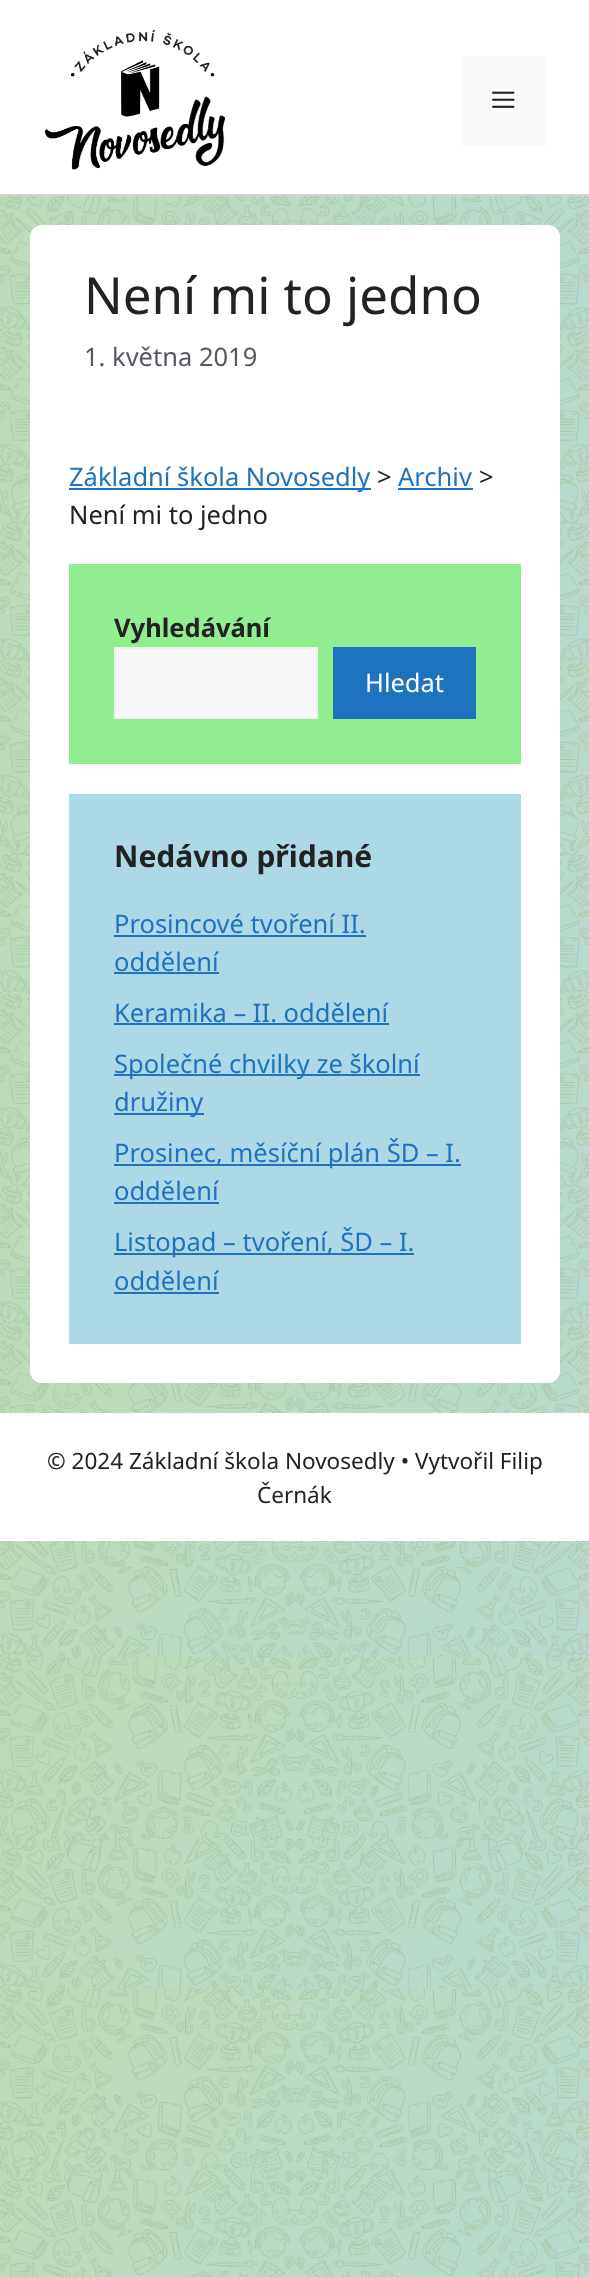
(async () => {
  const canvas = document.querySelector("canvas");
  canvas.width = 589;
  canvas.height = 2277;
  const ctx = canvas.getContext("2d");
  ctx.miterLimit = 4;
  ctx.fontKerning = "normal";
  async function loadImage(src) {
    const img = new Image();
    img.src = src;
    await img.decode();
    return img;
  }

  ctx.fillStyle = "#ffffff";
  ctx.fillRect(0, 0, 589, 2277);
  ctx.drawImage(await loadImage("img/1.png"), 0, 196, 589, 2081);
  ctx.fillStyle = "#d3d3d3";
  ctx.fillRect(0, 194, 589, 2);
  ctx.drawImage(await loadImage("img/2.png"), 45, 30, 180, 140);
  ctx.fillStyle = "#fafafa";
  ctx.fillRect(462, 56, 83, 90);
  ctx.drawImage(await loadImage("img/3.png"), 492, 91, 23, 17);
  ctx.fillStyle = "#ffffff";
  ctx.beginPath();
  ctx.roundRect(31, 226, 528, 1156, 11);
  ctx.fill();
  ctx.strokeStyle = "#ffffff";
  ctx.lineWidth = 2;
  ctx.stroke();
  for (const [x, y, w, h, color] of [
    [69, 488, 302, 2, "#1e73be"],
    [398, 488, 75, 2, "#1e73be"],
    [69, 564, 452, 200, "#90ee90"],
  ]) {
    ctx.fillStyle = color;
    ctx.fillRect(x, y, w, h);
  }
  ctx.fillStyle = "#f7f8f9";
  ctx.beginPath();
  ctx.rect(115, 648, 202, 70);
  ctx.fill();
  ctx.strokeStyle = "#f0f0f0";
  ctx.stroke();
  for (const [x, y, w, h, color] of [
    [333, 647, 143, 72, "#1e73be"],
    [69, 794, 452, 550, "#add8e6"],
    [114, 935, 252, 2, "#1e73be"],
    [114, 972, 105, 2, "#1e73be"],
    [114, 1023, 275, 2, "#1e73be"],
    [114, 1074, 306, 2, "#1e73be"],
    [114, 1113, 90, 2, "#1e73be"],
    [114, 1164, 347, 2, "#1e73be"],
    [114, 1202, 105, 2, "#1e73be"],
    [114, 1253, 300, 2, "#1e73be"],
    [114, 1292, 105, 2, "#1e73be"],
    [0, 1413, 589, 128, "#ffffff"],
  ]) {
    ctx.fillStyle = color;
    ctx.fillRect(x, y, w, h);
  }
  ctx.font = "51px Noto Sans";
  ctx.fillStyle = "#222222";
  ctx.fillText("Není mi to jedno", 84, 314);
  ctx.font = "25.5px Noto Sans";
  ctx.fillStyle = "#575760";
  ctx.fillText("1. května 2019", 84, 366);
  ctx.fillStyle = "#1e73be";
  ctx.fillText("Základní škola Novosedly", 69, 486);
  ctx.fillStyle = "#222222";
  ctx.fillText(">", 377, 486);
  ctx.fillStyle = "#1e73be";
  ctx.fillText("Archiv", 398, 486);
  ctx.fillStyle = "#222222";
  ctx.fillText(">", 479, 486);
  ctx.fillText("Není mi to jedno", 69, 524);
  ctx.font = "bold 25.5px Noto Sans";
  ctx.fillText("Vyhledávání", 114, 637);
  ctx.font = "25.5px Noto Sans";
  ctx.fillStyle = "#ffffff";
  ctx.fillText("Hledat", 365, 692);
  ctx.font = "bold 30px Noto Sans";
  ctx.fillStyle = "#222222";
  ctx.fillText("Nedávno přidané", 114, 867);
  ctx.font = "25.5px Noto Sans";
  ctx.fillStyle = "#1e73be";
  for (const [text, x, y] of [
    ["Prosincové tvoření II.", 114, 933],
    ["oddělení", 114, 971],
    ["Keramika – II. oddělení", 114, 1022],
    ["Společné chvilky ze školní", 114, 1073],
    ["družiny", 114, 1111],
    ["Prosinec, měsíční plán ŠD – I.", 114, 1162],
    ["oddělení", 114, 1200],
    ["Listopad – tvoření, ŠD – I.", 114, 1251],
    ["oddělení", 114, 1290],
  ]) {
    ctx.fillText(text, x, y);
  }
  ctx.font = "22.5px Noto Sans";
  ctx.fillStyle = "#222222";
  ctx.fillText("© 2024 Základní škola Novosedly • Vytvořil Filip", 47, 1469);
  ctx.fillText("Černák", 257, 1503);
})();
